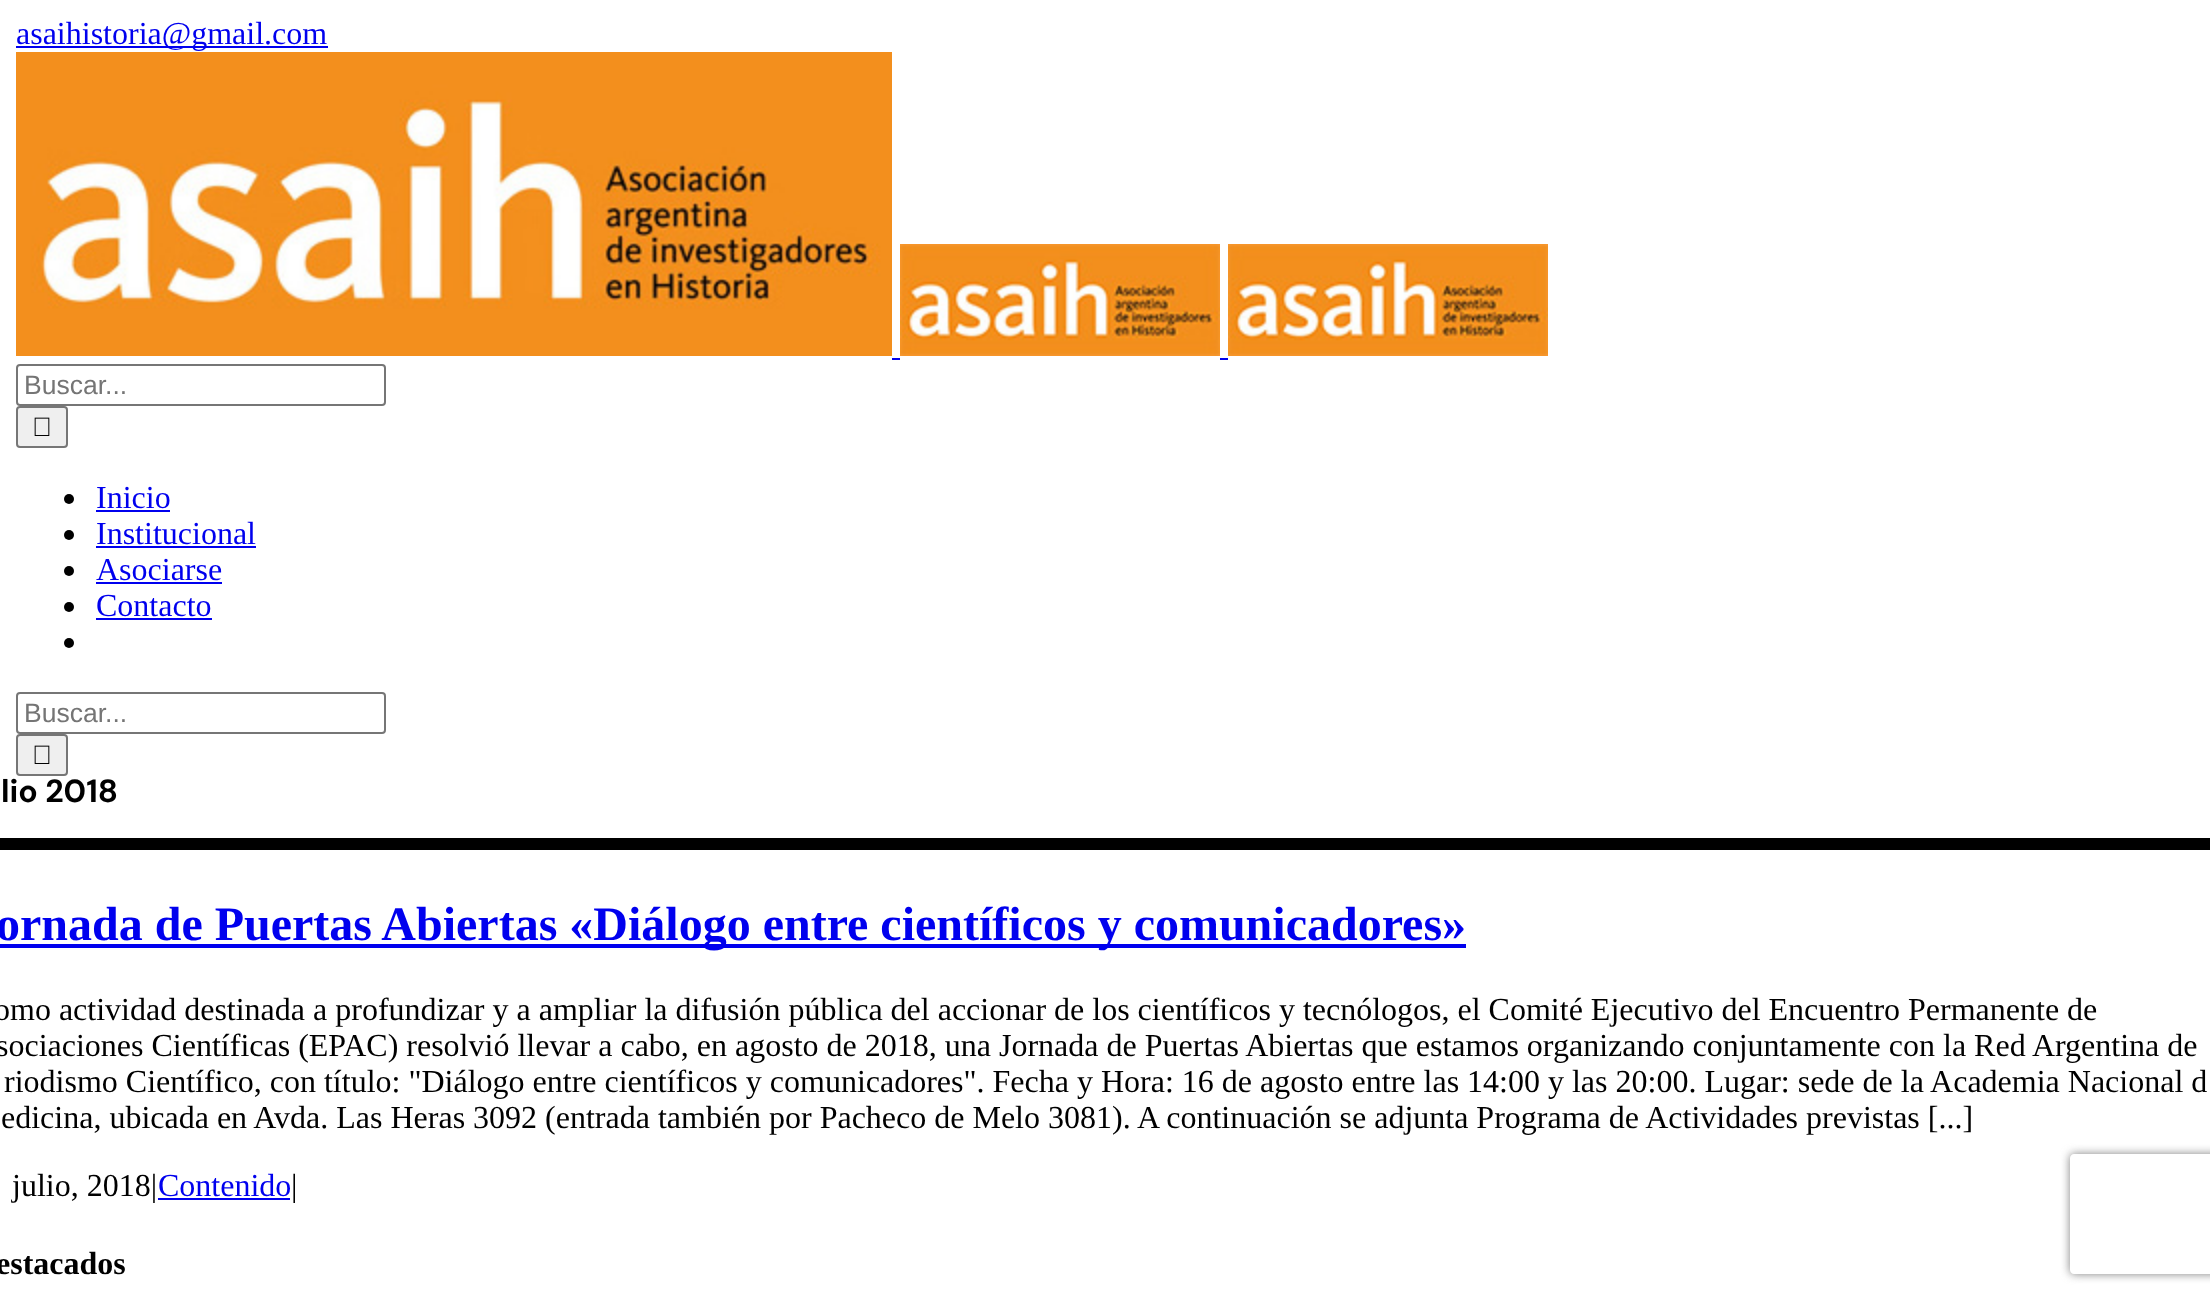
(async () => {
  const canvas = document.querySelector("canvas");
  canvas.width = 2210;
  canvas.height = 1301;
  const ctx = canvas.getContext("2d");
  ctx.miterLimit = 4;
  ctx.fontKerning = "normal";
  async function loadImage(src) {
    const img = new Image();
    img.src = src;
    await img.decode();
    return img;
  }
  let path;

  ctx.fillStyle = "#ffffff";
  ctx.fillRect(0, 0, 2210, 1301);
  ctx.fillStyle = "#0000ee";
  ctx.fillRect(16, 46, 312, 2);
  ctx.drawImage(await loadImage("img/1.png"), 16, 52, 876, 304);
  ctx.drawImage(await loadImage("img/2.png"), 900, 244, 320, 112);
  ctx.drawImage(await loadImage("img/2.png"), 1228, 244, 320, 112);
  ctx.fillRect(892, 358, 8, 2);
  ctx.fillRect(1220, 358, 8, 2);
  ctx.beginPath();
  ctx.roundRect(17, 365, 368, 40, 3);
  ctx.strokeStyle = "#767676";
  ctx.lineWidth = 2;
  ctx.stroke();
  ctx.fillStyle = "#efefef";
  ctx.beginPath();
  ctx.roundRect(17, 407, 50, 40, 3);
  ctx.fill();
  ctx.stroke();
  ctx.drawImage(await loadImage("img/3.png"), 34, 417, 16, 19);
  ctx.fillStyle = "#000000";
  ctx.beginPath();
  ctx.arc(69, 499, 5, 0, Math.PI * 2);
  ctx.fill();
  ctx.fillStyle = "#0000ee";
  ctx.fillRect(96, 510, 74, 2);
  ctx.fillStyle = "#000000";
  ctx.beginPath();
  ctx.arc(69, 535, 5, 0, Math.PI * 2);
  ctx.fill();
  ctx.fillStyle = "#0000ee";
  ctx.fillRect(96, 546, 160, 2);
  ctx.fillStyle = "#000000";
  ctx.beginPath();
  ctx.arc(69, 571, 5, 0, Math.PI * 2);
  ctx.fill();
  ctx.fillStyle = "#0000ee";
  ctx.fillRect(96, 582, 126, 2);
  ctx.fillStyle = "#000000";
  ctx.beginPath();
  ctx.arc(69, 607, 5, 0, Math.PI * 2);
  ctx.fill();
  ctx.fillStyle = "#0000ee";
  ctx.fillRect(96, 618, 116, 2);
  ctx.fillStyle = "#000000";
  ctx.beginPath();
  ctx.arc(69, 643, 5, 0, Math.PI * 2);
  ctx.fill();
  ctx.beginPath();
  ctx.roundRect(17, 693, 368, 40, 3);
  ctx.stroke();
  ctx.fillStyle = "#efefef";
  ctx.beginPath();
  ctx.roundRect(17, 735, 50, 40, 3);
  ctx.fill();
  ctx.stroke();
  ctx.drawImage(await loadImage("img/3.png"), 34, 745, 16, 19);
  for (const [x, y, w, h, color] of [
    [0, 838, 2210, 12, "#000000"],
    [0, 944, 1466, 4, "#0000ee"],
    [158, 1198, 132, 2, "#0000ee"],
  ]) {
    ctx.fillStyle = color;
    ctx.fillRect(x, y, w, h);
  }
  ctx.save();
  path = new Path2D("M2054 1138H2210V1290H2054ZM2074 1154H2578C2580 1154 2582 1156 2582 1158V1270C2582 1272 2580 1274 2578 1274H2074C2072 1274 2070 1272 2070 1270V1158C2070 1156 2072 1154 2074 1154Z");
  ctx.clip(path, "evenodd");
  ctx.fillStyle = "#808080";
  ctx.filter = "blur(5px)";
  ctx.beginPath();
  ctx.roundRect(2070, 1154, 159, 120, 4);
  ctx.fill();
  ctx.filter = "none";
  ctx.restore();
  ctx.font = "32px Liberation Serif";
  ctx.fillText("asaihistoria@gmail.com", 16, 44);
  ctx.font = "26.5px Liberation Sans";
  ctx.fillStyle = "#757575";
  ctx.fillText("Buscar...", 24, 394);
  ctx.font = "32px Liberation Serif";
  ctx.fillStyle = "#0000ee";
  for (const [text, x, y] of [
    ["Inicio", 96, 508],
    ["Institucional", 96, 544],
    ["Asociarse", 96, 580],
    ["Contacto", 96, 616],
  ]) {
    ctx.fillText(text, x, y);
  }
  ctx.font = "26.5px Liberation Sans";
  ctx.fillStyle = "#757575";
  ctx.fillText("Buscar...", 24, 722);
  ctx.font = "bold 32px DM Sans";
  ctx.fillStyle = "#000000";
  ctx.fillText("lio 2018", 1, 802);
  ctx.font = "bold 48px Liberation Serif";
  ctx.fillStyle = "#0000ee";
  ctx.fillText("ornada de Puertas Abiertas «Diálogo entre científicos y comunicadores»", -4, 940);
  ctx.font = "32px Liberation Serif";
  ctx.fillStyle = "#000000";
  for (const [text, x, y] of [
    ["omo actividad destinada a profundizar y a ampliar la difusión pública del accionar de los científicos y tecnólogos, el Comité Ejecutivo del Encuentro Permanente de", -6, 1020],
    ["sociaciones Científicas (EPAC) resolvió llevar a cabo, en agosto de 2018, una Jornada de Puertas Abiertas que estamos organizando conjuntamente con la Red Argentina de", -4, 1056],
    ["riodismo Científico, con título: \"Diálogo entre científicos y comunicadores\". Fecha y Hora: 16 de agosto entre las 14:00 y las 20:00. Lugar: sede de la Academia Nacional d", 4, 1092],
    ["edicina, ubicada en Avda. Las Heras 3092 (entrada también por Pacheco de Melo 3081). A continuación se adjunta Programa de Actividades previstas [...]", 1, 1128],
    ["julio, 2018|", 12, 1196],
  ]) {
    ctx.fillText(text, x, y);
  }
  ctx.fillStyle = "#0000ee";
  ctx.fillText("Contenido", 158, 1196);
  ctx.fillStyle = "#000000";
  ctx.fillText("|", 291, 1196);
  ctx.font = "bold 32px Liberation Serif";
  ctx.fillText("estacados", -4, 1274);
})();
